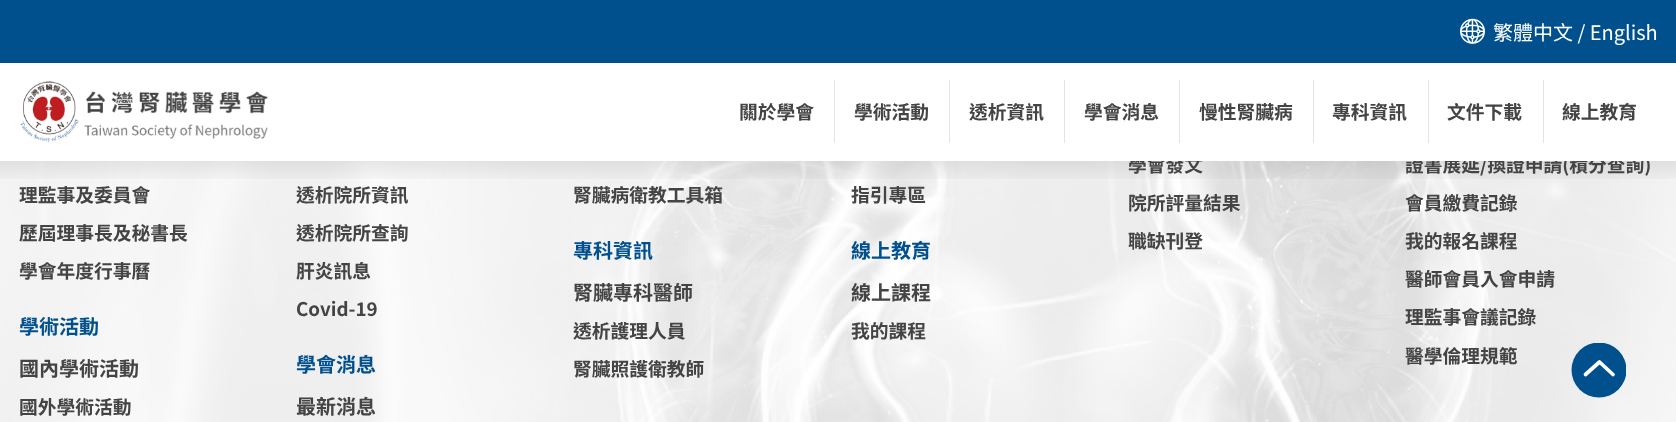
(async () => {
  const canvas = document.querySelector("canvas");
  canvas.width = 1676;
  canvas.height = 422;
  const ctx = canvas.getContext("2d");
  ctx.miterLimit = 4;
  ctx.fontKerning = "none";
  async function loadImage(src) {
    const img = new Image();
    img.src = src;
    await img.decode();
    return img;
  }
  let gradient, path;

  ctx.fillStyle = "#ffffff";
  ctx.fillRect(0, 0, 1676, 422);
  ctx.fillStyle = "#00508e";
  ctx.fillRect(0, 0, 1676, 63);
  ctx.drawImage(await loadImage("img/1.png"), 1460, 18, 25, 26);
  ctx.drawImage(await loadImage("img/2.png"), 20, 81, 248, 62);
  for (const [x, y, w, h, color] of [
    [834, 80, 1, 63, "#e4e4e4"],
    [949, 80, 1, 63, "#e4e4e4"],
    [1064, 80, 1, 63, "#e4e4e4"],
    [1179, 80, 1, 63, "#e4e4e4"],
    [1313, 80, 1, 63, "#e4e4e4"],
    [1428, 80, 1, 63, "#e4e4e4"],
    [1543, 80, 1, 63, "#e4e4e4"],
  ]) {
    ctx.fillStyle = color;
    ctx.fillRect(x, y, w, h);
  }
  ctx.drawImage(await loadImage("img/3.png"), 0, 161, 1676, 261);
  gradient = ctx.createLinearGradient(838, 161, 838, 186);
  gradient.addColorStop(0, "rgba(0, 0, 0, 0.08)");
  gradient.addColorStop(1, "rgba(0, 0, 0, 0)");
  ctx.fillStyle = gradient;
  ctx.fillRect(0, 161, 1676, 18);
  ctx.save();
  ctx.beginPath();
  ctx.rect(1571, 343, 55, 55);
  ctx.clip();
  ctx.fillStyle = "#00508e";
  ctx.beginPath();
  ctx.arc(1599, 370, 27.5, 0, Math.PI * 2);
  ctx.fill();
  ctx.restore();
  path = new Path2D("M1585.5 374.5L1599.5 362L1613 374.5");
  ctx.strokeStyle = "#ffffff";
  ctx.lineWidth = 3.7;
  ctx.lineCap = "round";
  ctx.lineJoin = "round";
  ctx.stroke(path);
  ctx.font = "20px Noto Sans TC";
  ctx.fillStyle = "#ffffff";
  ctx.fillText("繁體中文 / English", 1493, 40);
  ctx.font = "bold 18.75px Noto Sans TC";
  ctx.fillStyle = "#444444";
  for (const [text, x, y] of [
    ["關於學會", 739, 119],
    ["學術活動", 854, 119],
    ["透析資訊", 969, 119],
    ["學會消息", 1084, 119],
    ["慢性腎臟病", 1199, 119],
    ["專科資訊", 1332, 119],
    ["文件下載", 1447, 119],
    ["線上教育", 1562, 119],
    ["理監事及委員會", 19, 202],
    ["歷屆理事長及秘書長", 19, 240],
    ["學會年度行事曆", 19, 278],
  ]) {
    ctx.fillText(text, x, y);
  }
  ctx.font = "bold 20px Noto Sans TC";
  ctx.fillStyle = "#00508e";
  ctx.fillText("學術活動", 19, 334);
  ctx.fillStyle = "#444444";
  ctx.fillText("國內學術活動", 19, 376);
  ctx.font = "bold 18.75px Noto Sans TC";
  for (const [text, x, y] of [
    ["國外學術活動", 19, 414],
    ["透析院所資訊", 296, 202],
    ["透析院所查詢", 296, 240],
    ["肝炎訊息", 296, 278],
    ["Covid-19", 296, 316],
  ]) {
    ctx.fillText(text, x, y);
  }
  ctx.font = "bold 20px Noto Sans TC";
  ctx.fillStyle = "#00508e";
  ctx.fillText("學會消息", 296, 372);
  ctx.fillStyle = "#444444";
  ctx.fillText("最新消息", 296, 414);
  ctx.font = "bold 18.75px Noto Sans TC";
  ctx.fillText("腎臟病衛教工具箱", 573, 202);
  ctx.font = "bold 20px Noto Sans TC";
  ctx.fillStyle = "#00508e";
  ctx.fillText("專科資訊", 573, 258);
  ctx.fillStyle = "#444444";
  ctx.fillText("腎臟專科醫師", 573, 300);
  ctx.font = "bold 18.75px Noto Sans TC";
  for (const [text, x, y] of [
    ["透析護理人員", 573, 338],
    ["腎臟照護衛教師", 573, 376],
    ["指引專區", 851, 202],
  ]) {
    ctx.fillText(text, x, y);
  }
  ctx.font = "bold 20px Noto Sans TC";
  ctx.fillStyle = "#00508e";
  ctx.fillText("線上教育", 851, 258);
  ctx.fillStyle = "#444444";
  ctx.fillText("線上課程", 851, 300);
  ctx.font = "bold 18.75px Noto Sans TC";
  for (const [text, x, y] of [
    ["我的課程", 851, 338],
    ["學會發文", 1128, 172],
    ["院所評量結果", 1128, 210],
    ["職缺刊登", 1128, 248],
    ["證書展延/換證申請(積分查詢)", 1405, 172],
  ]) {
    ctx.fillText(text, x, y);
  }
  ctx.fillStyle = "#ffffff";
  ctx.fillRect(1130, 155, 520, 6);
  ctx.fillStyle = "#444444";
  for (const [text, x, y] of [
    ["會員繳費記錄", 1405, 210],
    ["我的報名課程", 1405, 248],
    ["醫師會員入會申請", 1405, 286],
    ["理監事會議記錄", 1405, 324],
    ["醫學倫理規範", 1405, 363],
  ]) {
    ctx.fillText(text, x, y);
  }
})();
